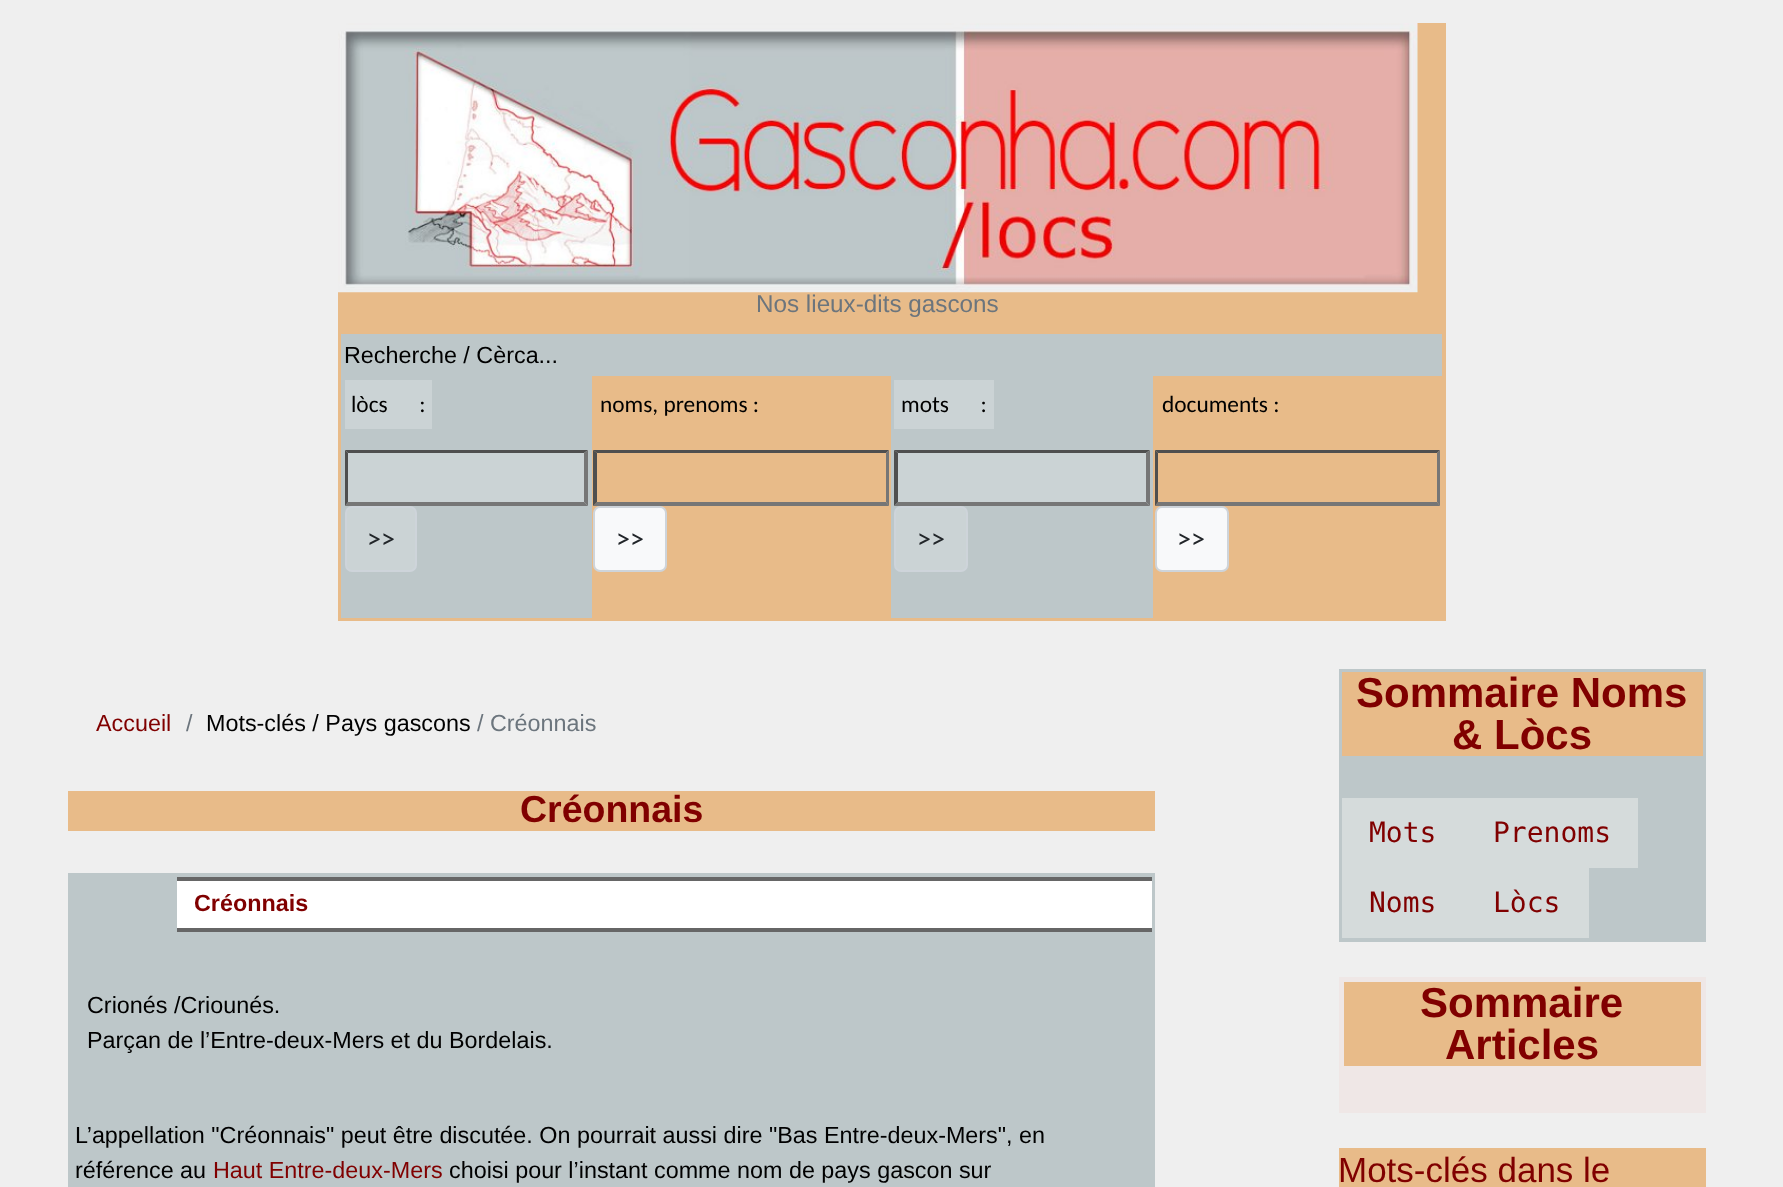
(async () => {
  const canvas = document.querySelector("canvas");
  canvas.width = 1783;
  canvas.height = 1187;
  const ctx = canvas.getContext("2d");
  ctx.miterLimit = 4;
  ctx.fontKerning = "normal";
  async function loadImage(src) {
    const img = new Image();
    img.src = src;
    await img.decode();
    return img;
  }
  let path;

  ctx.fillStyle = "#efefef";
  ctx.fillRect(0, 0, 1783, 1187);
  ctx.fillStyle = "#e8bb89";
  ctx.fillRect(338, 23, 1108, 598);
  ctx.drawImage(await loadImage("img/1.png"), 338, 23, 1080, 270);
  for (const [x, y, w, h, color] of [
    [341, 334, 1101, 42, "#bdc7c9"],
    [341, 376, 251, 242, "#bdc7c9"],
    [345, 380, 87, 49, "#cbd3d5"],
    [345, 450, 243, 56, "#cbd3d5"],
  ]) {
    ctx.fillStyle = color;
    ctx.fillRect(x, y, w, h);
  }
  ctx.fillStyle = "#4f4f4f";
  path = new Path2D("M345 450H588L584 453H348Z");
  ctx.fill(path);
  ctx.fillStyle = "#767676";
  path = new Path2D("M588 450V506L584 502V453Z");
  ctx.fill(path);
  path = new Path2D("M588 506H345L348 502H584Z");
  ctx.fill(path);
  ctx.fillStyle = "#4f4f4f";
  path = new Path2D("M345 506V450L348 453V502Z");
  ctx.fill(path);
  ctx.fillStyle = "#cbd3d5";
  ctx.beginPath();
  ctx.roundRect(346, 507, 70, 64, 6);
  ctx.fill();
  ctx.strokeStyle = "#ced4da";
  ctx.lineWidth = 2;
  ctx.stroke();
  ctx.fillStyle = "#4f4f4f";
  path = new Path2D("M593 450H889L886 453H597Z");
  ctx.fill(path);
  ctx.fillStyle = "#767676";
  path = new Path2D("M889 450V506L886 502V453Z");
  ctx.fill(path);
  path = new Path2D("M889 506H593L597 502H886Z");
  ctx.fill(path);
  ctx.fillStyle = "#4f4f4f";
  path = new Path2D("M593 506V450L597 453V502Z");
  ctx.fill(path);
  ctx.fillStyle = "#f8f9fa";
  ctx.beginPath();
  ctx.roundRect(594, 507, 72, 64, 6);
  ctx.fill();
  ctx.stroke();
  for (const [x, y, w, h, color] of [
    [891, 376, 262, 242, "#bdc7c9"],
    [894, 380, 100, 49, "#cbd3d5"],
    [894, 450, 256, 56, "#cbd3d5"],
  ]) {
    ctx.fillStyle = color;
    ctx.fillRect(x, y, w, h);
  }
  ctx.fillStyle = "#4f4f4f";
  path = new Path2D("M894 450H1150L1146 453H898Z");
  ctx.fill(path);
  ctx.fillStyle = "#767676";
  path = new Path2D("M1150 450V506L1146 502V453Z");
  ctx.fill(path);
  path = new Path2D("M1150 506H894L898 502H1146Z");
  ctx.fill(path);
  ctx.fillStyle = "#4f4f4f";
  path = new Path2D("M894 506V450L898 453V502Z");
  ctx.fill(path);
  ctx.fillStyle = "#cbd3d5";
  ctx.beginPath();
  ctx.roundRect(895, 507, 72, 64, 6);
  ctx.fill();
  ctx.stroke();
  ctx.fillStyle = "#4f4f4f";
  path = new Path2D("M1155 450H1440L1437 453H1158Z");
  ctx.fill(path);
  ctx.fillStyle = "#767676";
  path = new Path2D("M1440 450V506L1437 502V453Z");
  ctx.fill(path);
  path = new Path2D("M1440 506H1155L1158 502H1437Z");
  ctx.fill(path);
  ctx.fillStyle = "#4f4f4f";
  path = new Path2D("M1155 506V450L1158 453V502Z");
  ctx.fill(path);
  ctx.fillStyle = "#f8f9fa";
  ctx.beginPath();
  ctx.roundRect(1156, 507, 72, 64, 6);
  ctx.fill();
  ctx.stroke();
  for (const [x, y, w, h, color] of [
    [68, 791, 1087, 40, "#e8bb89"],
    [68, 873, 1087, 314, "#bdc7c9"],
    [177, 881, 975, 47, "#ffffff"],
    [177, 877, 975, 4, "#666666"],
    [177, 928, 975, 4, "#666666"],
    [1339, 669, 367, 273, "#bdc7c9"],
    [1342, 672, 361, 84, "#e8bb89"],
    [1342, 798, 296, 70, "#d5dbdb"],
    [1342, 868, 247, 70, "#d5dbdb"],
    [1339, 977, 367, 136, "#efe7e6"],
    [1344, 982, 357, 84, "#e8bb89"],
    [1339, 1148, 367, 39, "#e8bb89"],
  ]) {
    ctx.fillStyle = color;
    ctx.fillRect(x, y, w, h);
  }
  ctx.font = "24.25px Liberation Sans";
  ctx.fillStyle = "#6c757d";
  ctx.fillText("Nos lieux-dits gascons", 756, 312);
  ctx.font = "23.35px Liberation Sans";
  ctx.fillStyle = "#000000";
  ctx.fillText("Recherche / Cèrca...", 344, 363);
  ctx.font = "23.35px Carlito";
  ctx.fillText("lòcs      :", 351, 412);
  ctx.font = "28px Carlito";
  ctx.fillStyle = "#212529";
  ctx.fillText(">>", 367, 548);
  ctx.font = "23.35px Carlito";
  ctx.fillStyle = "#000000";
  ctx.fillText("noms, prenoms :", 600, 412);
  ctx.font = "28px Carlito";
  ctx.fillStyle = "#212529";
  ctx.fillText(">>", 616, 548);
  ctx.font = "23.35px Carlito";
  ctx.fillStyle = "#000000";
  ctx.fillText("mots      :", 901, 412);
  ctx.font = "28px Carlito";
  ctx.fillStyle = "#212529";
  ctx.fillText(">>", 917, 548);
  ctx.font = "23.35px Carlito";
  ctx.fillStyle = "#000000";
  ctx.fillText("documents :", 1162, 412);
  ctx.font = "28px Carlito";
  ctx.fillStyle = "#212529";
  ctx.fillText(">>", 1177, 548);
  ctx.font = "23.35px Liberation Sans";
  ctx.fillStyle = "#800000";
  ctx.fillText("Accueil", 96, 731);
  ctx.fillStyle = "#6c757d";
  ctx.fillText("/", 186, 731);
  ctx.fillStyle = "#000000";
  ctx.fillText("Mots-clés / Pays gascons", 206, 731);
  ctx.fillStyle = "#6c757d";
  ctx.fillText("/ Créonnais", 477, 731);
  ctx.font = "bold 37.5px Liberation Sans";
  ctx.fillStyle = "#800000";
  ctx.fillText("Créonnais", 520, 822);
  ctx.font = "bold 23.35px Liberation Sans";
  ctx.fillText("Créonnais", 194, 911);
  ctx.font = "23.35px Liberation Sans";
  ctx.fillStyle = "#000000";
  for (const [text, x, y] of [
    ["Crionés /Criounés.", 87, 1013],
    ["Parçan de l’Entre-deux-Mers et du Bordelais.", 87, 1048],
    ["L’appellation \"Créonnais\" peut être discutée. On pourrait aussi dire \"Bas Entre-deux-Mers\", en", 75, 1143],
    ["référence au", 75, 1178],
  ]) {
    ctx.fillText(text, x, y);
  }
  ctx.fillStyle = "#800000";
  ctx.fillText("Haut Entre-deux-Mers", 213, 1178);
  ctx.fillStyle = "#000000";
  ctx.fillText("choisi pour l’instant comme nom de pays gascon sur", 449, 1178);
  ctx.font = "bold 42px Liberation Sans";
  ctx.fillStyle = "#800000";
  ctx.fillText("Sommaire Noms", 1356, 707);
  ctx.fillText("& Lòcs", 1452, 749);
  ctx.font = "28px DejaVu Sans Mono";
  for (const [text, x, y] of [
    ["Mots", 1369, 842],
    ["Prenoms", 1493, 842],
    ["Noms", 1369, 912],
    ["Lòcs", 1493, 912],
  ]) {
    ctx.fillText(text, x, y);
  }
  ctx.font = "bold 42px Liberation Sans";
  ctx.fillText("Sommaire", 1420, 1017);
  ctx.fillText("Articles", 1445, 1059);
  ctx.font = "35px Liberation Sans";
  ctx.fillText("Mots-clés dans le", 1338, 1182);
})();
